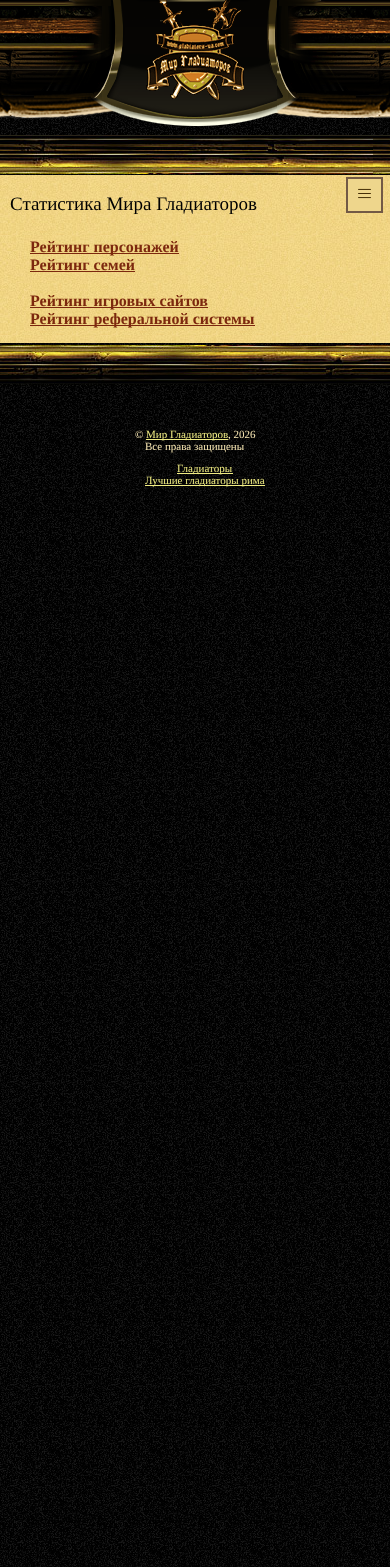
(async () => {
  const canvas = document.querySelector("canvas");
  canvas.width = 390;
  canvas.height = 1567;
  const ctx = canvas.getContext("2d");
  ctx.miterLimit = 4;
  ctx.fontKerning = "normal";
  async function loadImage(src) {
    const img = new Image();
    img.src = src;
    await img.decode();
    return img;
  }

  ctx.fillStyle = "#ffffff";
  ctx.fillRect(0, 0, 390, 1567);
  ctx.drawImage(await loadImage("img/1.png"), 0, 110, 390, 1457);
  ctx.drawImage(await loadImage("img/2.png"), 0, 0, 390, 126);
  ctx.drawImage(await loadImage("img/3.png"), 146, 0, 98, 100);
  ctx.drawImage(await loadImage("img/4.png"), 0, 175, 390, 168);
  ctx.drawImage(await loadImage("img/5.png"), 0, 135, 390, 40);
  for (const [x, y, w, h, color] of [
    [30, 253, 149, 1, "#7c280e"],
    [30, 271, 105, 1, "#7c280e"],
    [30, 307, 178, 1, "#7c280e"],
    [30, 325, 225, 1, "#7c280e"],
  ]) {
    ctx.fillStyle = color;
    ctx.fillRect(x, y, w, h);
  }
  ctx.fillStyle = "#eed68c";
  ctx.beginPath();
  ctx.rect(347, 178, 35, 34);
  ctx.fill();
  ctx.strokeStyle = "#725945";
  ctx.lineWidth = 2;
  ctx.stroke();
  ctx.drawImage(await loadImage("img/6.png"), 358, 188, 13, 11);
  ctx.drawImage(await loadImage("img/7.png"), 0, 343, 390, 85);
  for (const [x, y, w, h, color] of [
    [146, 439, 82, 1, "#efeb82"],
    [177, 473, 56, 1, "#efeb82"],
    [145, 485, 120, 1, "#efeb82"],
  ]) {
    ctx.fillStyle = color;
    ctx.fillRect(x, y, w, h);
  }
  ctx.font = "19px Liberation Serif";
  ctx.fillStyle = "#000000";
  ctx.fillText("Статистика Мира Гладиаторов", 10, 210);
  ctx.font = "bold 16px Liberation Serif";
  ctx.fillStyle = "#7c280e";
  for (const [text, x, y] of [
    ["Рейтинг персонажей", 30, 252],
    ["Рейтинг семей", 30, 270],
    ["Рейтинг игровых сайтов", 30, 306],
    ["Рейтинг реферальной системы", 30, 324],
  ]) {
    ctx.fillText(text, x, y);
  }
  ctx.font = "11px Liberation Serif";
  ctx.fillStyle = "#f8e7b3";
  ctx.fillText("©", 135, 438);
  ctx.fillStyle = "#efeb82";
  ctx.fillText("Мир Гладиаторов", 146, 438);
  ctx.fillStyle = "#f8e7b3";
  ctx.fillText(", 2026", 228, 438);
  ctx.fillText("Все права защищены", 145, 450);
  ctx.fillStyle = "#efeb82";
  ctx.fillText("Гладиаторы", 177, 472);
  ctx.fillText("Лучшие гладиаторы рима", 145, 484);
})();
